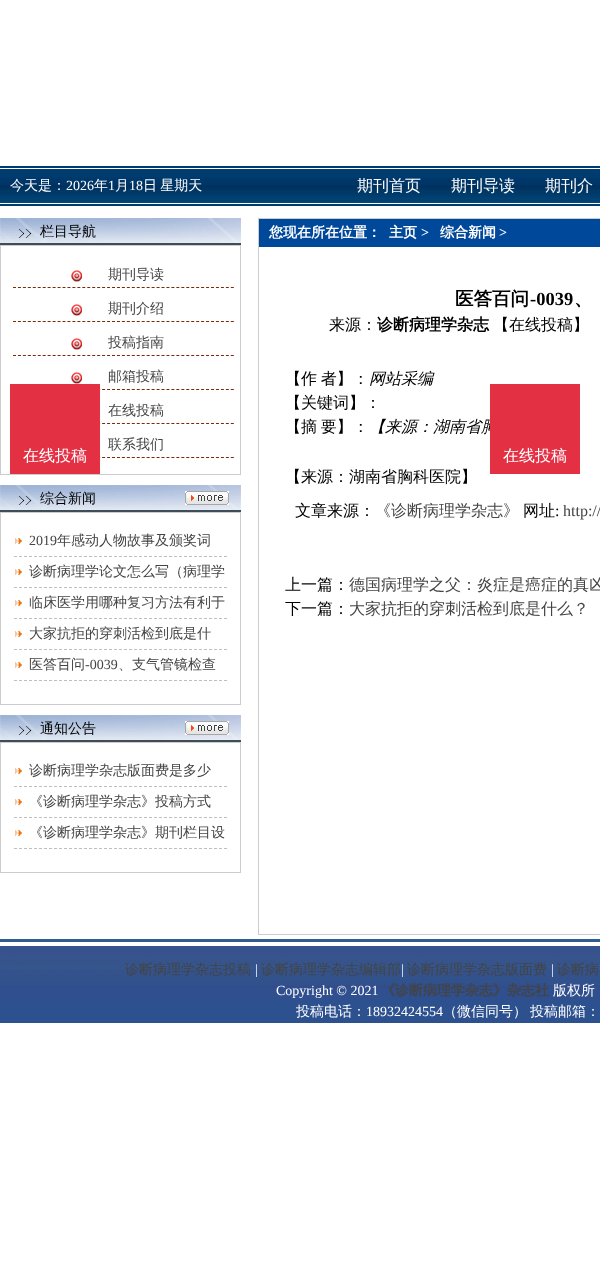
(async () => {
  const canvas = document.querySelector("canvas");
  canvas.width = 600;
  canvas.height = 1281;
  const ctx = canvas.getContext("2d");
  ctx.miterLimit = 4;
  ctx.fontKerning = "normal";
  async function loadImage(src) {
    const img = new Image();
    img.src = src;
    await img.decode();
    return img;
  }
  let path;

  ctx.fillStyle = "#ffffff";
  ctx.fillRect(0, 0, 600, 1281);
  ctx.drawImage(await loadImage("img/1.png"), 0, 166, 600, 40);
  ctx.drawImage(await loadImage("img/2.png"), 0, 218, 241, 27);
  ctx.strokeStyle = "#cccccc";
  ctx.strokeRect(0.5, 245.5, 240, 229);
  ctx.drawImage(await loadImage("img/3.png"), 71, 270, 11, 12);
  path = new Path2D("M13 287.5H234");
  ctx.strokeStyle = "#7c2a09";
  ctx.setLineDash([3, 1.95]);
  ctx.stroke(path);
  ctx.drawImage(await loadImage("img/3.png"), 71, 304, 11, 12);
  path = new Path2D("M13 321.5H234");
  ctx.stroke(path);
  ctx.drawImage(await loadImage("img/3.png"), 71, 338, 11, 12);
  path = new Path2D("M13 355.5H234");
  ctx.stroke(path);
  ctx.drawImage(await loadImage("img/3.png"), 71, 372, 11, 12);
  path = new Path2D("M13 389.5H234");
  ctx.stroke(path);
  path = new Path2D("M13 423.5H234");
  ctx.stroke(path);
  path = new Path2D("M13 457.5H234");
  ctx.stroke(path);
  ctx.drawImage(await loadImage("img/2.png"), 0, 485, 241, 27);
  ctx.drawImage(await loadImage("img/4.png"), 185, 491, 44, 14);
  ctx.strokeStyle = "#cccccc";
  ctx.setLineDash([]);
  ctx.strokeRect(0.5, 512.5, 240, 192);
  ctx.drawImage(await loadImage("img/5.png"), 15, 538, 7, 6);
  path = new Path2D("M14 556.5H227");
  ctx.strokeStyle = "#bfbfbf";
  ctx.setLineDash([3, 2]);
  ctx.stroke(path);
  ctx.drawImage(await loadImage("img/5.png"), 15, 569, 7, 6);
  path = new Path2D("M14 587.5H227");
  ctx.stroke(path);
  ctx.drawImage(await loadImage("img/5.png"), 15, 600, 7, 6);
  path = new Path2D("M14 618.5H227");
  ctx.stroke(path);
  ctx.drawImage(await loadImage("img/5.png"), 15, 631, 7, 6);
  path = new Path2D("M14 649.5H227");
  ctx.stroke(path);
  ctx.drawImage(await loadImage("img/5.png"), 15, 662, 7, 6);
  path = new Path2D("M14 680.5H227");
  ctx.stroke(path);
  ctx.drawImage(await loadImage("img/2.png"), 0, 715, 241, 27);
  ctx.drawImage(await loadImage("img/4.png"), 185, 721, 44, 14);
  ctx.strokeStyle = "#cccccc";
  ctx.setLineDash([]);
  ctx.strokeRect(0.5, 742.5, 240, 130);
  ctx.drawImage(await loadImage("img/5.png"), 15, 768, 7, 6);
  path = new Path2D("M14 786.5H227");
  ctx.strokeStyle = "#bfbfbf";
  ctx.setLineDash([3, 2]);
  ctx.stroke(path);
  ctx.drawImage(await loadImage("img/5.png"), 15, 799, 7, 6);
  path = new Path2D("M14 817.5H227");
  ctx.stroke(path);
  ctx.drawImage(await loadImage("img/5.png"), 15, 830, 7, 6);
  path = new Path2D("M14 848.5H227");
  ctx.stroke(path);
  ctx.strokeStyle = "#cccccc";
  ctx.setLineDash([]);
  ctx.strokeRect(258.5, 218.5, 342, 716);
  ctx.fillStyle = "#00489a";
  ctx.fillRect(259, 219, 341, 28);
  ctx.fillStyle = "#e33043";
  ctx.fillRect(10, 384, 90, 90);
  ctx.drawImage(await loadImage("img/6.png"), 0, 939, 600, 84);
  ctx.font = "500 14px WenQuanYi Zen Hei";
  ctx.fillStyle = "#ffffff";
  ctx.fillText("今天是：", 10, 190);
  ctx.font = "14px Liberation Serif";
  ctx.fillText("2026", 66, 190);
  ctx.font = "500 14px WenQuanYi Zen Hei";
  ctx.fillText("年", 94, 190);
  ctx.font = "14px Liberation Serif";
  ctx.fillText("1", 108, 190);
  ctx.font = "500 14px WenQuanYi Zen Hei";
  ctx.fillText("月", 115, 190);
  ctx.font = "14px Liberation Serif";
  ctx.fillText("18", 129, 190);
  ctx.wordSpacing = "-1px";
  ctx.font = "500 14px WenQuanYi Zen Hei";
  ctx.fillText("日 星期天", 143, 190);
  ctx.wordSpacing = "0px";
  ctx.font = "500 16px WenQuanYi Zen Hei";
  for (const [text, x, y] of [
    ["期刊首页", 357, 191],
    ["期刊导读", 451, 191],
    ["期刊介", 545, 191],
  ]) {
    ctx.fillText(text, x, y);
  }
  ctx.font = "500 14px WenQuanYi Zen Hei";
  ctx.fillStyle = "#000000";
  ctx.fillText("栏目导航", 40, 236);
  ctx.fillStyle = "#444444";
  for (const [text, x, y] of [
    ["期刊导读", 108, 279],
    ["期刊介绍", 108, 313],
    ["投稿指南", 108, 347],
    ["邮箱投稿", 108, 381],
    ["在线投稿", 108, 415],
    ["联系我们", 108, 449],
  ]) {
    ctx.fillText(text, x, y);
  }
  ctx.fillStyle = "#000000";
  ctx.fillText("综合新闻", 40, 503);
  ctx.font = "14px Liberation Serif";
  ctx.fillStyle = "#444444";
  ctx.fillText("2019", 29, 545);
  ctx.font = "500 14px WenQuanYi Zen Hei";
  for (const [text, x, y] of [
    ["年感动人物故事及颁奖词", 57, 545],
    ["诊断病理学论文怎么写（病理学", 29, 576],
    ["临床医学用哪种复习方法有利于", 29, 607],
    ["大家抗拒的穿刺活检到底是什", 29, 638],
    ["医答百问", 29, 669],
  ]) {
    ctx.fillText(text, x, y);
  }
  ctx.font = "14px Liberation Serif";
  ctx.fillText("-0039", 85, 669);
  ctx.font = "500 14px WenQuanYi Zen Hei";
  ctx.fillText("、支气管镜检查", 118, 669);
  ctx.fillStyle = "#000000";
  ctx.fillText("通知公告", 40, 733);
  ctx.fillStyle = "#444444";
  for (const [text, x, y] of [
    ["诊断病理学杂志版面费是多少", 29, 775],
    ["《诊断病理学杂志》投稿方式", 29, 806],
    ["《诊断病理学杂志》期刊栏目设", 29, 837],
  ]) {
    ctx.fillText(text, x, y);
  }
  ctx.font = "bold 14px WenQuanYi Zen Hei";
  ctx.fillStyle = "#ffffff";
  ctx.fillText("您现在所在位置：", 269, 237);
  ctx.fillText("主页", 389, 237);
  ctx.font = "bold 14px Liberation Serif";
  ctx.fillText(">", 421, 237);
  ctx.font = "bold 14px WenQuanYi Zen Hei";
  ctx.fillText("综合新闻", 440, 237);
  ctx.font = "bold 14px Liberation Serif";
  ctx.fillText(">", 499, 237);
  ctx.font = "bold 18.5px WenQuanYi Zen Hei";
  ctx.fillStyle = "#000000";
  ctx.fillText("医答百问", 455, 305);
  ctx.font = "bold 18.5px Liberation Serif";
  ctx.fillText("-0039", 530, 305);
  ctx.font = "bold 18.5px WenQuanYi Zen Hei";
  ctx.fillText("、", 574, 305);
  ctx.font = "500 16px WenQuanYi Zen Hei";
  ctx.fillText("来源：", 329, 330);
  ctx.font = "bold 16px WenQuanYi Zen Hei";
  ctx.fillText("诊断病理学杂志", 377, 330);
  ctx.font = "500 16px WenQuanYi Zen Hei";
  ctx.fillText("【在线投稿】", 493, 330);
  ctx.wordSpacing = "-1px";
  ctx.fillText("【作 者】：", 285, 384);
  ctx.wordSpacing = "0px";
  ctx.font = "italic 500 16px WenQuanYi Zen Hei";
  ctx.fillText("网站采编", 369, 384);
  ctx.font = "500 16px WenQuanYi Zen Hei";
  ctx.fillText("【关键词】：", 285, 408);
  ctx.wordSpacing = "-1px";
  ctx.fillText("【摘 要】：", 285, 432);
  ctx.wordSpacing = "0px";
  ctx.font = "italic 500 16px WenQuanYi Zen Hei";
  ctx.fillText("【来源：湖南省胸", 369, 432);
  ctx.font = "500 16px WenQuanYi Zen Hei";
  ctx.fillText("【来源：湖南省胸科医院】", 285, 482);
  ctx.fillText("文章来源：", 295, 516);
  ctx.fillStyle = "#444444";
  ctx.fillText("《诊断病理学杂志》", 375, 516);
  ctx.fillStyle = "#000000";
  ctx.fillText("网址", 523, 516);
  ctx.font = "16px Liberation Serif";
  ctx.fillText(":", 555, 516);
  ctx.fillStyle = "#444444";
  ctx.fillText("http://", 563, 516);
  ctx.font = "500 16px WenQuanYi Zen Hei";
  ctx.fillStyle = "#000000";
  ctx.fillText("上一篇：", 285, 590);
  ctx.fillStyle = "#444444";
  ctx.fillText("德国病理学之父：炎症是癌症的真凶", 349, 590);
  ctx.fillStyle = "#000000";
  ctx.fillText("下一篇：", 285, 614);
  ctx.fillStyle = "#444444";
  ctx.fillText("大家抗拒的穿刺活检到底是什么？", 349, 614);
  ctx.fillStyle = "#ffffff";
  ctx.fillText("在线投稿", 23, 461);
  ctx.fillStyle = "#e33043";
  ctx.fillRect(490, 384, 90, 90);
  ctx.fillStyle = "#ffffff";
  ctx.fillText("在线投稿", 503, 461);
  ctx.font = "500 14px WenQuanYi Zen Hei";
  ctx.fillStyle = "#444444";
  ctx.fillText("诊断病理学杂志投稿", 125, 974);
  ctx.font = "14px Liberation Serif";
  ctx.fillStyle = "#ffffff";
  ctx.fillText("|", 255, 974);
  ctx.font = "500 14px WenQuanYi Zen Hei";
  ctx.fillStyle = "#444444";
  ctx.fillText("诊断病理学杂志编辑部", 261, 974);
  ctx.font = "14px Liberation Serif";
  ctx.fillStyle = "#ffffff";
  ctx.fillText("|", 401, 974);
  ctx.font = "500 14px WenQuanYi Zen Hei";
  ctx.fillStyle = "#444444";
  ctx.fillText("诊断病理学杂志版面费", 407, 974);
  ctx.font = "14px Liberation Serif";
  ctx.fillStyle = "#ffffff";
  ctx.fillText("|", 551, 974);
  ctx.font = "500 14px WenQuanYi Zen Hei";
  ctx.fillStyle = "#444444";
  ctx.fillText("诊断病", 557, 974);
  ctx.font = "14px Liberation Serif";
  ctx.fillStyle = "#ffffff";
  ctx.fillText("Copyright © 2021", 276, 995);
  ctx.font = "bold 14px WenQuanYi Zen Hei";
  ctx.fillStyle = "#444444";
  ctx.fillText("《诊断病理学杂志》杂志社", 381, 995);
  ctx.font = "500 14px WenQuanYi Zen Hei";
  ctx.fillStyle = "#ffffff";
  ctx.fillText("版权所", 553, 995);
  ctx.fillText("投稿电话：", 296, 1016);
  ctx.font = "14px Liberation Serif";
  ctx.fillText("18932424554", 366, 1016);
  ctx.font = "500 14px WenQuanYi Zen Hei";
  ctx.fillText("（微信同号）", 443, 1016);
  ctx.fillText("投稿邮箱：", 530, 1016);
})();
